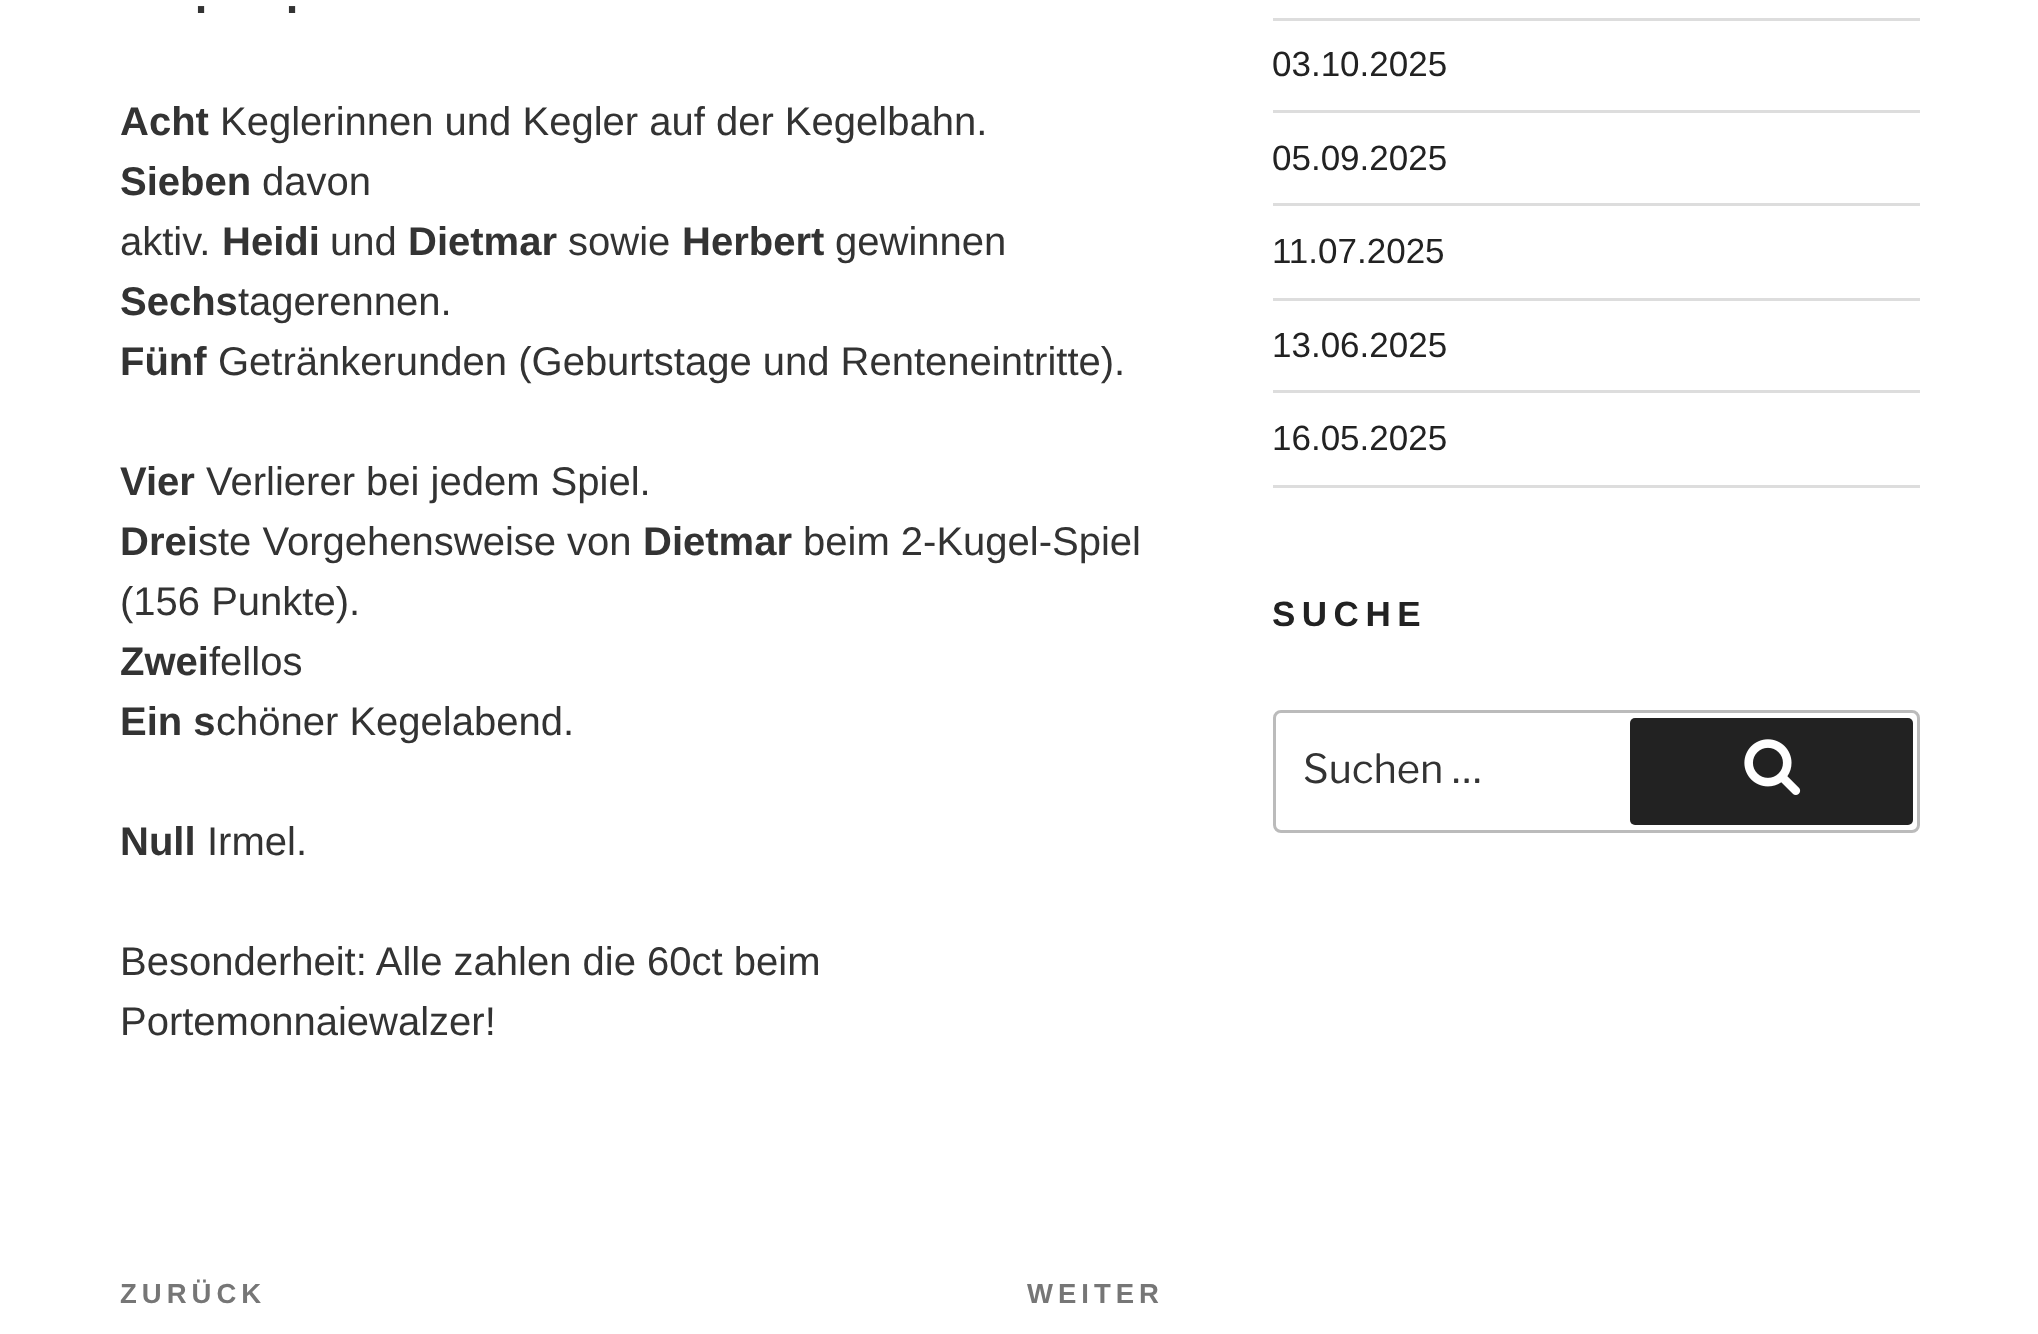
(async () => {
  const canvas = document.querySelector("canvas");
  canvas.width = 2038;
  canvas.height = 1334;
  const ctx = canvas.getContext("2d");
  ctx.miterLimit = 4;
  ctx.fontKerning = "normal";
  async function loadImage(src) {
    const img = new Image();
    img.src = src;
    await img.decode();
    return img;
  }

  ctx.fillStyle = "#ffffff";
  ctx.fillRect(0, 0, 2038, 1334);
  for (const [x, y, w, h, color] of [
    [1273, 18, 647, 3, "#dddddd"],
    [1273, 110, 647, 3, "#dddddd"],
    [1273, 203, 647, 3, "#dddddd"],
    [1273, 298, 647, 3, "#dddddd"],
    [1273, 390, 647, 3, "#dddddd"],
    [1273, 485, 647, 3, "#dddddd"],
  ]) {
    ctx.fillStyle = color;
    ctx.fillRect(x, y, w, h);
  }
  ctx.beginPath();
  ctx.roundRect(1274.5, 711.5, 644, 120, 6.5);
  ctx.strokeStyle = "#bbbbbb";
  ctx.lineWidth = 3;
  ctx.stroke();
  ctx.fillStyle = "#222222";
  ctx.beginPath();
  ctx.roundRect(1630, 718, 283, 107, 5);
  ctx.fill();
  ctx.drawImage(await loadImage("img/1.png"), 1744, 739, 57, 56);
  ctx.font = "65px Liberation Sans";
  ctx.fillStyle = "#333333";
  ctx.fillText(".", 192, 13);
  ctx.fillText(".", 283, 13);
  ctx.font = "bold 40px Liberation Sans";
  ctx.fillText("Acht", 120, 135);
  ctx.font = "40px Liberation Sans";
  ctx.fillText("Keglerinnen und Kegler auf der Kegelbahn.", 220, 135);
  ctx.font = "bold 40px Liberation Sans";
  ctx.fillText("Sieben", 120, 195);
  ctx.font = "40px Liberation Sans";
  ctx.fillText("davon", 262, 195);
  ctx.fillText("aktiv.", 120, 255);
  ctx.font = "bold 40px Liberation Sans";
  ctx.fillText("Heidi", 222, 255);
  ctx.font = "40px Liberation Sans";
  ctx.fillText("und", 330, 255);
  ctx.font = "bold 40px Liberation Sans";
  ctx.fillText("Dietmar", 408, 255);
  ctx.font = "40px Liberation Sans";
  ctx.fillText("sowie", 568, 255);
  ctx.font = "bold 40px Liberation Sans";
  ctx.fillText("Herbert", 682, 255);
  ctx.font = "40px Liberation Sans";
  ctx.fillText("gewinnen", 835, 255);
  ctx.font = "bold 40px Liberation Sans";
  ctx.fillText("Sechs", 120, 315);
  ctx.font = "40px Liberation Sans";
  ctx.fillText("tagerennen.", 238, 315);
  ctx.font = "bold 40px Liberation Sans";
  ctx.fillText("Fünf", 120, 375);
  ctx.font = "40px Liberation Sans";
  ctx.fillText("Getränkerunden (Geburtstage und Renteneintritte).", 218, 375);
  ctx.font = "bold 40px Liberation Sans";
  ctx.fillText("Vier", 120, 495);
  ctx.font = "40px Liberation Sans";
  ctx.fillText("Verlierer bei jedem Spiel.", 206, 495);
  ctx.font = "bold 40px Liberation Sans";
  ctx.fillText("Drei", 120, 555);
  ctx.font = "40px Liberation Sans";
  ctx.fillText("ste Vorgehensweise von", 198, 555);
  ctx.font = "bold 40px Liberation Sans";
  ctx.fillText("Dietmar", 643, 555);
  ctx.font = "40px Liberation Sans";
  ctx.fillText("beim 2-Kugel-Spiel", 803, 555);
  ctx.fillText("(156 Punkte).", 120, 615);
  ctx.font = "bold 40px Liberation Sans";
  ctx.fillText("Zwei", 120, 675);
  ctx.font = "40px Liberation Sans";
  ctx.fillText("fellos", 209, 675);
  ctx.font = "bold 40px Liberation Sans";
  ctx.fillText("Ein s", 120, 735);
  ctx.font = "40px Liberation Sans";
  ctx.fillText("chöner Kegelabend.", 216, 735);
  ctx.font = "bold 40px Liberation Sans";
  ctx.fillText("Null", 120, 855);
  ctx.font = "40px Liberation Sans";
  for (const [text, x, y] of [
    ["Irmel.", 207, 855],
    ["Besonderheit: Alle zahlen die 60ct beim", 120, 975],
    ["Portemonnaiewalzer!", 120, 1035],
  ]) {
    ctx.fillText(text, x, y);
  }
  ctx.letterSpacing = "5px";
  ctx.font = "bold 27.5px Liberation Sans";
  ctx.fillStyle = "#767676";
  ctx.fillText("ZURÜCK", 120, 1303);
  ctx.fillText("WEITER", 1027, 1303);
  ctx.letterSpacing = "0px";
  ctx.font = "35px Liberation Sans";
  ctx.fillStyle = "#222222";
  for (const [text, x, y] of [
    ["03.10.2025", 1272, 76],
    ["05.09.2025", 1272, 170],
    ["11.07.2025", 1272, 263],
    ["13.06.2025", 1272, 357],
    ["16.05.2025", 1272, 450],
  ]) {
    ctx.fillText(text, x, y);
  }
  ctx.letterSpacing = "6.5px";
  ctx.font = "bold 35px Liberation Sans";
  ctx.fillText("SUCHE", 1272, 626);
  ctx.letterSpacing = "0px";
  ctx.font = "40px Libre Franklin";
  ctx.fillStyle = "#333333";
  ctx.fillText("Suchen …", 1303, 783);
})();
